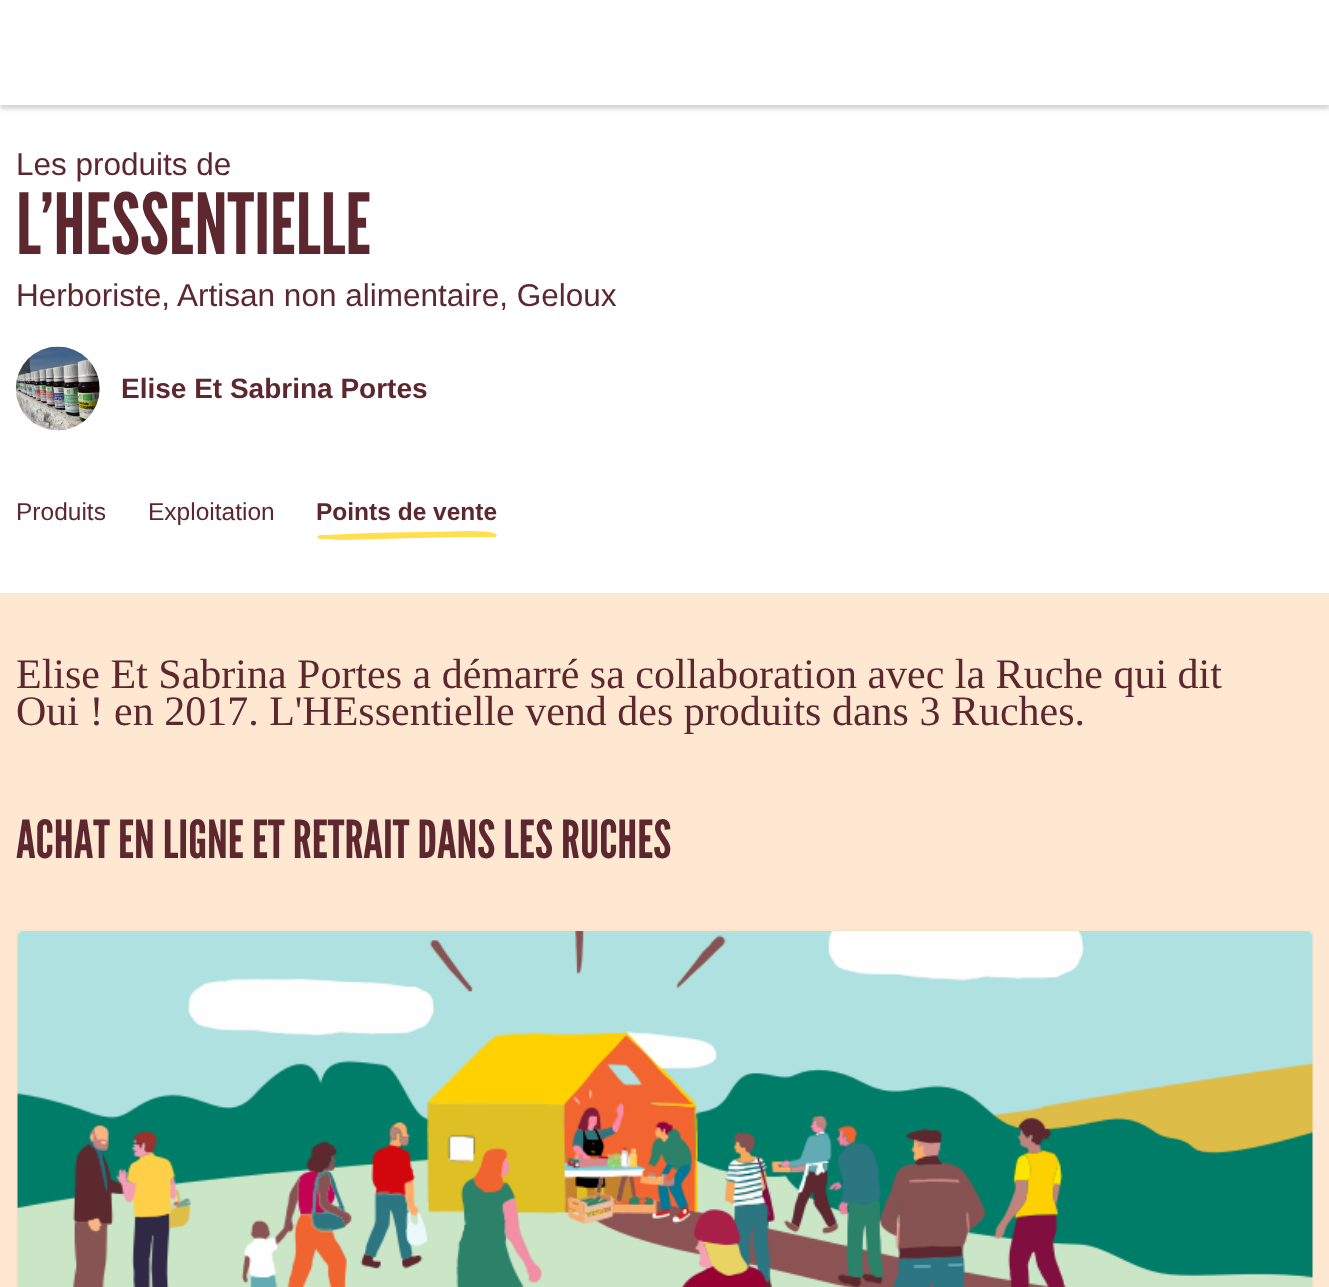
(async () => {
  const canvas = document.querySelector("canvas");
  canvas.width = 1329;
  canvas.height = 1287;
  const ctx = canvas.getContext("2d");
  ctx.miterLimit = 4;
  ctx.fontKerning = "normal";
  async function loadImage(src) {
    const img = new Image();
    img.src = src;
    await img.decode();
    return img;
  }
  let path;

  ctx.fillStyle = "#ffe8d2";
  ctx.fillRect(0, 0, 1329, 1287);
  ctx.fillStyle = "#ffffff";
  ctx.fillRect(0, 105, 1329, 488);
  ctx.fillStyle = "rgba(45, 40, 70, 0.2)";
  ctx.filter = "blur(2px)";
  ctx.beginPath();
  ctx.rect(0, 4, 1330, 105);
  ctx.fill();
  ctx.filter = "none";
  ctx.fillStyle = "#ffffff";
  ctx.fillRect(0, 0, 1329, 105);
  ctx.drawImage(await loadImage("img/1.png"), 15, 346, 85, 85);
  ctx.fillStyle = "#ffdf4d";
  path = new Path2D("M496 535V534L491 533H494L489 532C469 530 450 532 430 532C396 532 362 533 328 535H320L318 536L317 538L321 539H342H330L339 540L455 537H494C497 537 496 536 496 536L498 535C496 535 496 535 494 535H493H496");
  ctx.fill(path, "evenodd");
  ctx.fillStyle = "#ffffff";
  ctx.beginPath();
  ctx.roundRect(17, 930, 1296, 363, 4);
  ctx.fill();
  ctx.strokeStyle = "#ffe3c8";
  ctx.lineWidth = 2;
  ctx.stroke();
  ctx.drawImage(await loadImage("img/2.png"), 17, 931, 1296, 356);
  ctx.font = "31.5px Liberation Sans";
  ctx.fillStyle = "#5c272f";
  ctx.fillText("Les produits de", 16, 175);
  ctx.font = "84px League Gothic";
  ctx.fillText("L'HESSENTIELLE", 16, 254);
  ctx.font = "31.5px Liberation Sans";
  ctx.fillText("Herboriste, Artisan non alimentaire, Geloux", 16, 306);
  ctx.font = "bold 28px Liberation Sans";
  ctx.fillText("Elise Et Sabrina Portes", 121, 398);
  ctx.font = "24.5px Liberation Sans";
  ctx.fillText("Produits", 16, 520);
  ctx.fillText("Exploitation", 148, 520);
  ctx.font = "bold 24.5px Liberation Sans";
  ctx.fillText("Points de vente", 316, 520);
  ctx.font = "42px Liberation Serif";
  ctx.fillText("Elise Et Sabrina Portes a démarré sa collaboration avec la Ruche qui dit", 16, 688);
  ctx.fillText("Oui ! en 2017. L'HEssentielle vend des produits dans 3 Ruches.", 16, 725);
  ctx.font = "52.5px League Gothic";
  ctx.fillText("ACHAT EN LIGNE ET RETRAIT DANS LES RUCHES", 16, 858);
})();
